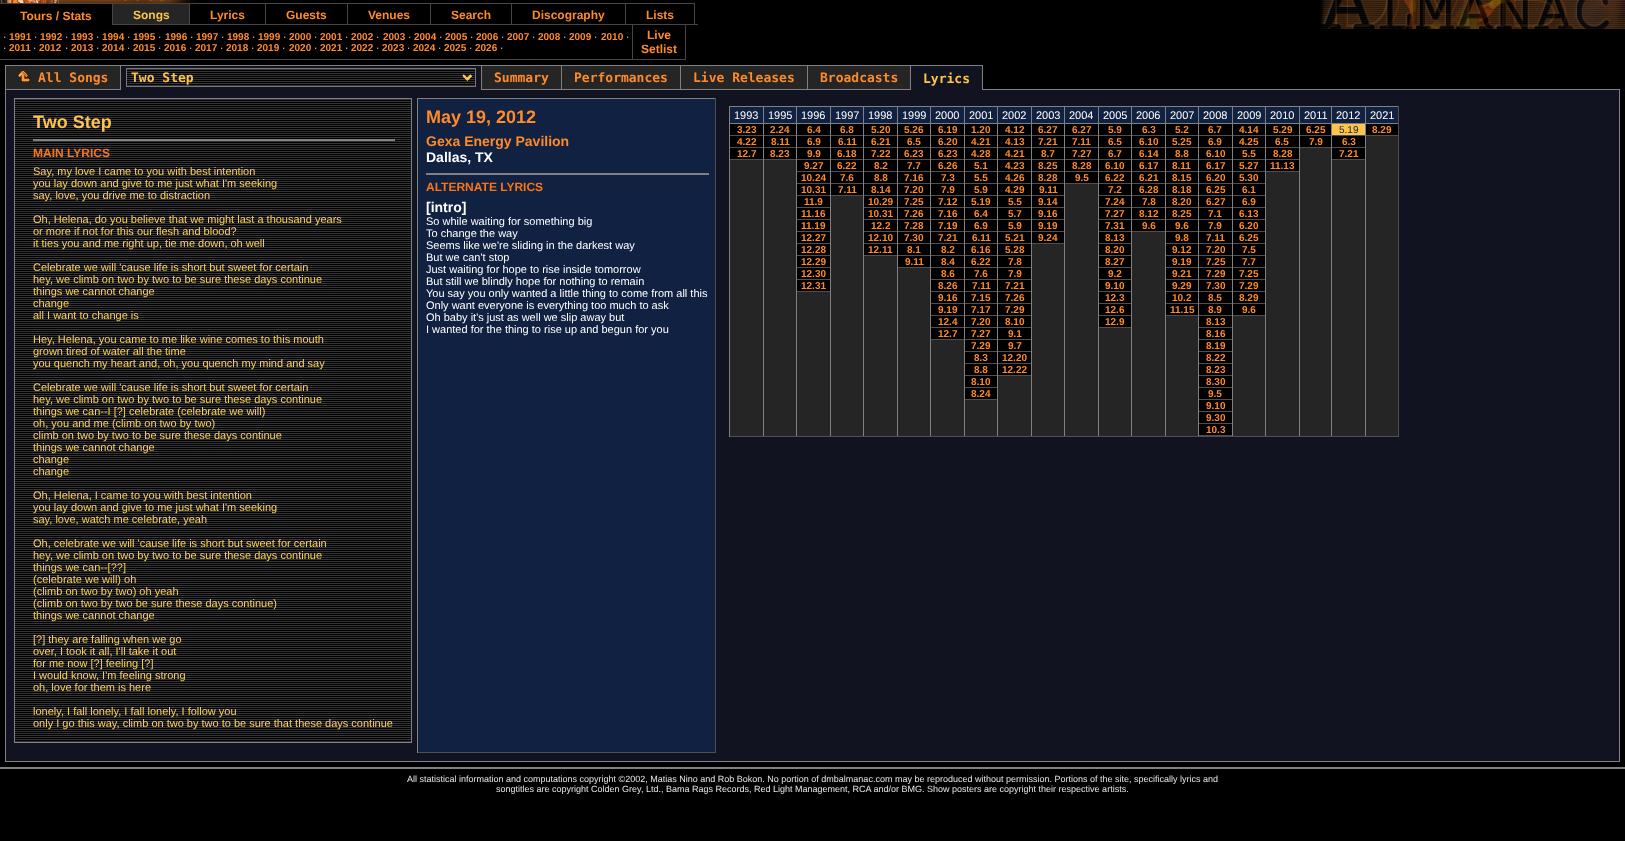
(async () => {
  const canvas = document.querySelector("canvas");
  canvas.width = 1625;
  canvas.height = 841;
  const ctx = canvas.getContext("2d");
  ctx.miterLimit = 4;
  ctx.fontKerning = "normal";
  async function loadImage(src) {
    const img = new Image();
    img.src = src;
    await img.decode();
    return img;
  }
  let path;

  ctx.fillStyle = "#000000";
  ctx.fillRect(0, 0, 1625, 841);
  ctx.drawImage(await loadImage("img/1.png"), 0, 0, 196, 3);
  ctx.drawImage(await loadImage("img/2.png"), 1320, 0, 305, 29);
  for (const [x, y, w, h, color] of [
    [0, 3, 694, 1, "#444444"],
    [113, 4, 76, 20, "#252525"],
    [112, 24, 586, 1, "#444444"],
    [112, 3, 1, 22, "#444444"],
    [189, 3, 1, 22, "#444444"],
    [265, 3, 1, 22, "#444444"],
    [347, 3, 1, 22, "#444444"],
    [430, 3, 1, 22, "#444444"],
    [511, 3, 1, 22, "#444444"],
    [625, 3, 1, 22, "#444444"],
    [694, 3, 1, 22, "#444444"],
    [632, 25, 1, 35, "#444444"],
    [0, 59, 633, 1, "#444444"],
    [685, 25, 1, 35, "#444444"],
    [633, 59, 53, 1, "#444444"],
    [0, 767, 1625, 2, "#808080"],
    [6, 66, 114, 23, "#252525"],
    [5, 65, 977, 1, "#808080"],
    [5, 89, 115, 1, "#808080"],
    [5, 65, 1, 25, "#808080"],
  ]) {
    ctx.fillStyle = color;
    ctx.fillRect(x, y, w, h);
  }
  ctx.drawImage(await loadImage("img/3.png"), 18, 71, 12, 11);
  ctx.fillStyle = "#121321";
  ctx.fillRect(121, 66, 360, 24);
  ctx.fillStyle = "#808080";
  ctx.fillRect(120, 65, 1, 25);
  ctx.drawImage(await loadImage("img/4.png"), 127, 69, 348, 17);
  ctx.strokeStyle = "#767676";
  ctx.strokeRect(126.5, 68.5, 349, 18);
  path = new Path2D("M463.5 75.5L467.5 79.5L471.5 75.5");
  ctx.strokeStyle = "#ffc449";
  ctx.lineWidth = 2;
  ctx.stroke(path);
  for (const [x, y, w, h, color] of [
    [482, 66, 79, 23, "#252525"],
    [481, 89, 429, 1, "#808080"],
    [481, 65, 1, 25, "#808080"],
    [562, 66, 118, 23, "#252525"],
    [561, 65, 1, 25, "#808080"],
    [681, 66, 126, 23, "#252525"],
    [680, 65, 1, 25, "#808080"],
    [808, 66, 102, 23, "#252525"],
    [807, 65, 1, 25, "#808080"],
    [911, 66, 71, 24, "#121321"],
    [910, 65, 1, 25, "#808080"],
    [982, 89, 638, 1, "#808080"],
    [982, 65, 1, 25, "#808080"],
    [6, 90, 1613, 671, "#121321"],
    [1619, 90, 1, 672, "#808080"],
    [5, 761, 1615, 1, "#808080"],
    [5, 90, 1, 672, "#808080"],
  ]) {
    ctx.fillStyle = color;
    ctx.fillRect(x, y, w, h);
  }
  ctx.drawImage(await loadImage("img/5.png"), 15, 99, 396, 643);
  ctx.strokeStyle = "#808080";
  ctx.lineWidth = 1;
  ctx.strokeRect(14.5, 98.5, 397, 644);
  for (const [x, y, w, h, color] of [
    [33, 139, 362, 2, "#808080"],
    [418, 99, 297, 653, "#102142"],
    [417, 98, 299, 1, "#808080"],
    [715, 98, 1, 655, "#4f4f4f"],
    [417, 752, 299, 1, "#4f4f4f"],
    [417, 98, 1, 655, "#808080"],
    [426, 173, 283, 2, "#808080"],
    [729, 106, 670, 1, "#808080"],
    [1398, 106, 1, 331, "#4f4f4f"],
    [729, 436, 670, 1, "#4f4f4f"],
    [729, 106, 1, 331, "#808080"],
    [730, 136, 668, 300, "#252525"],
    [763, 107, 1, 329, "#808080"],
    [730, 107, 33, 16, "#102142"],
    [730, 123, 33, 1, "#808080"],
    [730, 124, 33, 11, "#000000"],
    [730, 135, 33, 1, "#4f4f4f"],
    [730, 136, 33, 11, "#000000"],
    [730, 147, 33, 1, "#4f4f4f"],
    [730, 148, 33, 11, "#000000"],
    [730, 159, 33, 1, "#4f4f4f"],
    [796, 107, 1, 329, "#808080"],
    [764, 107, 32, 16, "#102142"],
    [764, 123, 32, 1, "#808080"],
    [764, 124, 32, 11, "#000000"],
    [764, 135, 32, 1, "#4f4f4f"],
    [764, 136, 32, 11, "#000000"],
    [764, 147, 32, 1, "#4f4f4f"],
    [764, 148, 32, 11, "#000000"],
    [764, 159, 32, 1, "#4f4f4f"],
    [830, 107, 1, 329, "#808080"],
    [797, 107, 33, 16, "#102142"],
    [797, 123, 33, 1, "#808080"],
    [797, 124, 33, 11, "#000000"],
    [797, 135, 33, 1, "#4f4f4f"],
    [797, 136, 33, 11, "#000000"],
    [797, 147, 33, 1, "#4f4f4f"],
    [797, 148, 33, 11, "#000000"],
    [797, 159, 33, 1, "#4f4f4f"],
    [797, 160, 33, 11, "#000000"],
    [797, 171, 33, 1, "#4f4f4f"],
    [797, 172, 33, 11, "#000000"],
    [797, 183, 33, 1, "#4f4f4f"],
    [797, 184, 33, 11, "#000000"],
    [797, 195, 33, 1, "#4f4f4f"],
    [797, 196, 33, 11, "#000000"],
    [797, 207, 33, 1, "#4f4f4f"],
    [797, 208, 33, 11, "#000000"],
    [797, 219, 33, 1, "#4f4f4f"],
    [797, 220, 33, 11, "#000000"],
    [797, 231, 33, 1, "#4f4f4f"],
    [797, 232, 33, 11, "#000000"],
    [797, 243, 33, 1, "#4f4f4f"],
    [797, 244, 33, 11, "#000000"],
    [797, 255, 33, 1, "#4f4f4f"],
    [797, 256, 33, 11, "#000000"],
    [797, 267, 33, 1, "#4f4f4f"],
    [797, 268, 33, 11, "#000000"],
    [797, 279, 33, 1, "#4f4f4f"],
    [797, 280, 33, 11, "#000000"],
    [797, 291, 33, 1, "#4f4f4f"],
    [863, 107, 1, 329, "#808080"],
    [831, 107, 32, 16, "#102142"],
    [831, 123, 32, 1, "#808080"],
    [831, 124, 32, 11, "#000000"],
    [831, 135, 32, 1, "#4f4f4f"],
    [831, 136, 32, 11, "#000000"],
    [831, 147, 32, 1, "#4f4f4f"],
    [831, 148, 32, 11, "#000000"],
    [831, 159, 32, 1, "#4f4f4f"],
    [831, 160, 32, 11, "#000000"],
    [831, 171, 32, 1, "#4f4f4f"],
    [831, 172, 32, 11, "#000000"],
    [831, 183, 32, 1, "#4f4f4f"],
    [831, 184, 32, 11, "#000000"],
    [831, 195, 32, 1, "#4f4f4f"],
    [897, 107, 1, 329, "#808080"],
    [864, 107, 33, 16, "#102142"],
    [864, 123, 33, 1, "#808080"],
    [864, 124, 33, 11, "#000000"],
    [864, 135, 33, 1, "#4f4f4f"],
    [864, 136, 33, 11, "#000000"],
    [864, 147, 33, 1, "#4f4f4f"],
    [864, 148, 33, 11, "#000000"],
    [864, 159, 33, 1, "#4f4f4f"],
    [864, 160, 33, 11, "#000000"],
    [864, 171, 33, 1, "#4f4f4f"],
    [864, 172, 33, 11, "#000000"],
    [864, 183, 33, 1, "#4f4f4f"],
    [864, 184, 33, 11, "#000000"],
    [864, 195, 33, 1, "#4f4f4f"],
    [864, 196, 33, 11, "#000000"],
    [864, 207, 33, 1, "#4f4f4f"],
    [864, 208, 33, 11, "#000000"],
    [864, 219, 33, 1, "#4f4f4f"],
    [864, 220, 33, 11, "#000000"],
    [864, 231, 33, 1, "#4f4f4f"],
    [864, 232, 33, 11, "#000000"],
    [864, 243, 33, 1, "#4f4f4f"],
    [864, 244, 33, 11, "#000000"],
    [864, 255, 33, 1, "#4f4f4f"],
    [930, 107, 1, 329, "#808080"],
    [898, 107, 32, 16, "#102142"],
    [898, 123, 32, 1, "#808080"],
    [898, 124, 32, 11, "#000000"],
    [898, 135, 32, 1, "#4f4f4f"],
    [898, 136, 32, 11, "#000000"],
    [898, 147, 32, 1, "#4f4f4f"],
    [898, 148, 32, 11, "#000000"],
    [898, 159, 32, 1, "#4f4f4f"],
    [898, 160, 32, 11, "#000000"],
    [898, 171, 32, 1, "#4f4f4f"],
    [898, 172, 32, 11, "#000000"],
    [898, 183, 32, 1, "#4f4f4f"],
    [898, 184, 32, 11, "#000000"],
    [898, 195, 32, 1, "#4f4f4f"],
    [898, 196, 32, 11, "#000000"],
    [898, 207, 32, 1, "#4f4f4f"],
    [898, 208, 32, 11, "#000000"],
    [898, 219, 32, 1, "#4f4f4f"],
    [898, 220, 32, 11, "#000000"],
    [898, 231, 32, 1, "#4f4f4f"],
    [898, 232, 32, 11, "#000000"],
    [898, 243, 32, 1, "#4f4f4f"],
    [898, 244, 32, 11, "#000000"],
    [898, 255, 32, 1, "#4f4f4f"],
    [898, 256, 32, 11, "#000000"],
    [898, 267, 32, 1, "#4f4f4f"],
    [964, 107, 1, 329, "#808080"],
    [931, 107, 33, 16, "#102142"],
    [931, 123, 33, 1, "#808080"],
    [931, 124, 33, 11, "#000000"],
    [931, 135, 33, 1, "#4f4f4f"],
    [931, 136, 33, 11, "#000000"],
    [931, 147, 33, 1, "#4f4f4f"],
    [931, 148, 33, 11, "#000000"],
    [931, 159, 33, 1, "#4f4f4f"],
    [931, 160, 33, 11, "#000000"],
    [931, 171, 33, 1, "#4f4f4f"],
    [931, 172, 33, 11, "#000000"],
    [931, 183, 33, 1, "#4f4f4f"],
    [931, 184, 33, 11, "#000000"],
    [931, 195, 33, 1, "#4f4f4f"],
    [931, 196, 33, 11, "#000000"],
    [931, 207, 33, 1, "#4f4f4f"],
    [931, 208, 33, 11, "#000000"],
    [931, 219, 33, 1, "#4f4f4f"],
    [931, 220, 33, 11, "#000000"],
    [931, 231, 33, 1, "#4f4f4f"],
    [931, 232, 33, 11, "#000000"],
    [931, 243, 33, 1, "#4f4f4f"],
    [931, 244, 33, 11, "#000000"],
    [931, 255, 33, 1, "#4f4f4f"],
    [931, 256, 33, 11, "#000000"],
    [931, 267, 33, 1, "#4f4f4f"],
    [931, 268, 33, 11, "#000000"],
    [931, 279, 33, 1, "#4f4f4f"],
    [931, 280, 33, 11, "#000000"],
    [931, 291, 33, 1, "#4f4f4f"],
    [931, 292, 33, 11, "#000000"],
    [931, 303, 33, 1, "#4f4f4f"],
    [931, 304, 33, 11, "#000000"],
    [931, 315, 33, 1, "#4f4f4f"],
    [931, 316, 33, 11, "#000000"],
    [931, 327, 33, 1, "#4f4f4f"],
    [931, 328, 33, 11, "#000000"],
    [931, 339, 33, 1, "#4f4f4f"],
    [997, 107, 1, 329, "#808080"],
    [965, 107, 32, 16, "#102142"],
    [965, 123, 32, 1, "#808080"],
    [965, 124, 32, 11, "#000000"],
    [965, 135, 32, 1, "#4f4f4f"],
    [965, 136, 32, 11, "#000000"],
    [965, 147, 32, 1, "#4f4f4f"],
    [965, 148, 32, 11, "#000000"],
    [965, 159, 32, 1, "#4f4f4f"],
    [965, 160, 32, 11, "#000000"],
    [965, 171, 32, 1, "#4f4f4f"],
    [965, 172, 32, 11, "#000000"],
    [965, 183, 32, 1, "#4f4f4f"],
    [965, 184, 32, 11, "#000000"],
    [965, 195, 32, 1, "#4f4f4f"],
    [965, 196, 32, 11, "#000000"],
    [965, 207, 32, 1, "#4f4f4f"],
    [965, 208, 32, 11, "#000000"],
    [965, 219, 32, 1, "#4f4f4f"],
    [965, 220, 32, 11, "#000000"],
    [965, 231, 32, 1, "#4f4f4f"],
    [965, 232, 32, 11, "#000000"],
    [965, 243, 32, 1, "#4f4f4f"],
    [965, 244, 32, 11, "#000000"],
    [965, 255, 32, 1, "#4f4f4f"],
    [965, 256, 32, 11, "#000000"],
    [965, 267, 32, 1, "#4f4f4f"],
    [965, 268, 32, 11, "#000000"],
    [965, 279, 32, 1, "#4f4f4f"],
    [965, 280, 32, 11, "#000000"],
    [965, 291, 32, 1, "#4f4f4f"],
    [965, 292, 32, 11, "#000000"],
    [965, 303, 32, 1, "#4f4f4f"],
    [965, 304, 32, 11, "#000000"],
    [965, 315, 32, 1, "#4f4f4f"],
    [965, 316, 32, 11, "#000000"],
    [965, 327, 32, 1, "#4f4f4f"],
    [965, 328, 32, 11, "#000000"],
    [965, 339, 32, 1, "#4f4f4f"],
    [965, 340, 32, 11, "#000000"],
    [965, 351, 32, 1, "#4f4f4f"],
    [965, 352, 32, 11, "#000000"],
    [965, 363, 32, 1, "#4f4f4f"],
    [965, 364, 32, 11, "#000000"],
    [965, 375, 32, 1, "#4f4f4f"],
    [965, 376, 32, 11, "#000000"],
    [965, 387, 32, 1, "#4f4f4f"],
    [965, 388, 32, 11, "#000000"],
    [965, 399, 32, 1, "#4f4f4f"],
    [1031, 107, 1, 329, "#808080"],
    [998, 107, 33, 16, "#102142"],
    [998, 123, 33, 1, "#808080"],
    [998, 124, 33, 11, "#000000"],
    [998, 135, 33, 1, "#4f4f4f"],
    [998, 136, 33, 11, "#000000"],
    [998, 147, 33, 1, "#4f4f4f"],
    [998, 148, 33, 11, "#000000"],
    [998, 159, 33, 1, "#4f4f4f"],
    [998, 160, 33, 11, "#000000"],
    [998, 171, 33, 1, "#4f4f4f"],
    [998, 172, 33, 11, "#000000"],
    [998, 183, 33, 1, "#4f4f4f"],
    [998, 184, 33, 11, "#000000"],
    [998, 195, 33, 1, "#4f4f4f"],
    [998, 196, 33, 11, "#000000"],
    [998, 207, 33, 1, "#4f4f4f"],
    [998, 208, 33, 11, "#000000"],
    [998, 219, 33, 1, "#4f4f4f"],
    [998, 220, 33, 11, "#000000"],
    [998, 231, 33, 1, "#4f4f4f"],
    [998, 232, 33, 11, "#000000"],
    [998, 243, 33, 1, "#4f4f4f"],
    [998, 244, 33, 11, "#000000"],
    [998, 255, 33, 1, "#4f4f4f"],
    [998, 256, 33, 11, "#000000"],
    [998, 267, 33, 1, "#4f4f4f"],
    [998, 268, 33, 11, "#000000"],
    [998, 279, 33, 1, "#4f4f4f"],
    [998, 280, 33, 11, "#000000"],
    [998, 291, 33, 1, "#4f4f4f"],
    [998, 292, 33, 11, "#000000"],
    [998, 303, 33, 1, "#4f4f4f"],
    [998, 304, 33, 11, "#000000"],
    [998, 315, 33, 1, "#4f4f4f"],
    [998, 316, 33, 11, "#000000"],
    [998, 327, 33, 1, "#4f4f4f"],
    [998, 328, 33, 11, "#000000"],
    [998, 339, 33, 1, "#4f4f4f"],
    [998, 340, 33, 11, "#000000"],
    [998, 351, 33, 1, "#4f4f4f"],
    [998, 352, 33, 11, "#000000"],
    [998, 363, 33, 1, "#4f4f4f"],
    [998, 364, 33, 11, "#000000"],
    [998, 375, 33, 1, "#4f4f4f"],
    [1064, 107, 1, 329, "#808080"],
    [1032, 107, 32, 16, "#102142"],
    [1032, 123, 32, 1, "#808080"],
    [1032, 124, 32, 11, "#000000"],
    [1032, 135, 32, 1, "#4f4f4f"],
    [1032, 136, 32, 11, "#000000"],
    [1032, 147, 32, 1, "#4f4f4f"],
    [1032, 148, 32, 11, "#000000"],
    [1032, 159, 32, 1, "#4f4f4f"],
    [1032, 160, 32, 11, "#000000"],
    [1032, 171, 32, 1, "#4f4f4f"],
    [1032, 172, 32, 11, "#000000"],
    [1032, 183, 32, 1, "#4f4f4f"],
    [1032, 184, 32, 11, "#000000"],
    [1032, 195, 32, 1, "#4f4f4f"],
    [1032, 196, 32, 11, "#000000"],
    [1032, 207, 32, 1, "#4f4f4f"],
    [1032, 208, 32, 11, "#000000"],
    [1032, 219, 32, 1, "#4f4f4f"],
    [1032, 220, 32, 11, "#000000"],
    [1032, 231, 32, 1, "#4f4f4f"],
    [1032, 232, 32, 11, "#000000"],
    [1032, 243, 32, 1, "#4f4f4f"],
    [1098, 107, 1, 329, "#808080"],
    [1065, 107, 33, 16, "#102142"],
    [1065, 123, 33, 1, "#808080"],
    [1065, 124, 33, 11, "#000000"],
    [1065, 135, 33, 1, "#4f4f4f"],
    [1065, 136, 33, 11, "#000000"],
    [1065, 147, 33, 1, "#4f4f4f"],
    [1065, 148, 33, 11, "#000000"],
    [1065, 159, 33, 1, "#4f4f4f"],
    [1065, 160, 33, 11, "#000000"],
    [1065, 171, 33, 1, "#4f4f4f"],
    [1065, 172, 33, 11, "#000000"],
    [1065, 183, 33, 1, "#4f4f4f"],
    [1131, 107, 1, 329, "#808080"],
    [1099, 107, 32, 16, "#102142"],
    [1099, 123, 32, 1, "#808080"],
    [1099, 124, 32, 11, "#000000"],
    [1099, 135, 32, 1, "#4f4f4f"],
    [1099, 136, 32, 11, "#000000"],
    [1099, 147, 32, 1, "#4f4f4f"],
    [1099, 148, 32, 11, "#000000"],
    [1099, 159, 32, 1, "#4f4f4f"],
    [1099, 160, 32, 11, "#000000"],
    [1099, 171, 32, 1, "#4f4f4f"],
    [1099, 172, 32, 11, "#000000"],
    [1099, 183, 32, 1, "#4f4f4f"],
    [1099, 184, 32, 11, "#000000"],
    [1099, 195, 32, 1, "#4f4f4f"],
    [1099, 196, 32, 11, "#000000"],
    [1099, 207, 32, 1, "#4f4f4f"],
    [1099, 208, 32, 11, "#000000"],
    [1099, 219, 32, 1, "#4f4f4f"],
    [1099, 220, 32, 11, "#000000"],
    [1099, 231, 32, 1, "#4f4f4f"],
    [1099, 232, 32, 11, "#000000"],
    [1099, 243, 32, 1, "#4f4f4f"],
    [1099, 244, 32, 11, "#000000"],
    [1099, 255, 32, 1, "#4f4f4f"],
    [1099, 256, 32, 11, "#000000"],
    [1099, 267, 32, 1, "#4f4f4f"],
    [1099, 268, 32, 11, "#000000"],
    [1099, 279, 32, 1, "#4f4f4f"],
    [1099, 280, 32, 11, "#000000"],
    [1099, 291, 32, 1, "#4f4f4f"],
    [1099, 292, 32, 11, "#000000"],
    [1099, 303, 32, 1, "#4f4f4f"],
    [1099, 304, 32, 11, "#000000"],
    [1099, 315, 32, 1, "#4f4f4f"],
    [1099, 316, 32, 11, "#000000"],
    [1099, 327, 32, 1, "#4f4f4f"],
    [1165, 107, 1, 329, "#808080"],
    [1132, 107, 33, 16, "#102142"],
    [1132, 123, 33, 1, "#808080"],
    [1132, 124, 33, 11, "#000000"],
    [1132, 135, 33, 1, "#4f4f4f"],
    [1132, 136, 33, 11, "#000000"],
    [1132, 147, 33, 1, "#4f4f4f"],
    [1132, 148, 33, 11, "#000000"],
    [1132, 159, 33, 1, "#4f4f4f"],
    [1132, 160, 33, 11, "#000000"],
    [1132, 171, 33, 1, "#4f4f4f"],
    [1132, 172, 33, 11, "#000000"],
    [1132, 183, 33, 1, "#4f4f4f"],
    [1132, 184, 33, 11, "#000000"],
    [1132, 195, 33, 1, "#4f4f4f"],
    [1132, 196, 33, 11, "#000000"],
    [1132, 207, 33, 1, "#4f4f4f"],
    [1132, 208, 33, 11, "#000000"],
    [1132, 219, 33, 1, "#4f4f4f"],
    [1132, 220, 33, 11, "#000000"],
    [1132, 231, 33, 1, "#4f4f4f"],
    [1198, 107, 1, 329, "#808080"],
    [1166, 107, 32, 16, "#102142"],
    [1166, 123, 32, 1, "#808080"],
    [1166, 124, 32, 11, "#000000"],
    [1166, 135, 32, 1, "#4f4f4f"],
    [1166, 136, 32, 11, "#000000"],
    [1166, 147, 32, 1, "#4f4f4f"],
    [1166, 148, 32, 11, "#000000"],
    [1166, 159, 32, 1, "#4f4f4f"],
    [1166, 160, 32, 11, "#000000"],
    [1166, 171, 32, 1, "#4f4f4f"],
    [1166, 172, 32, 11, "#000000"],
    [1166, 183, 32, 1, "#4f4f4f"],
    [1166, 184, 32, 11, "#000000"],
    [1166, 195, 32, 1, "#4f4f4f"],
    [1166, 196, 32, 11, "#000000"],
    [1166, 207, 32, 1, "#4f4f4f"],
    [1166, 208, 32, 11, "#000000"],
    [1166, 219, 32, 1, "#4f4f4f"],
    [1166, 220, 32, 11, "#000000"],
    [1166, 231, 32, 1, "#4f4f4f"],
    [1166, 232, 32, 11, "#000000"],
    [1166, 243, 32, 1, "#4f4f4f"],
    [1166, 244, 32, 11, "#000000"],
    [1166, 255, 32, 1, "#4f4f4f"],
    [1166, 256, 32, 11, "#000000"],
    [1166, 267, 32, 1, "#4f4f4f"],
    [1166, 268, 32, 11, "#000000"],
    [1166, 279, 32, 1, "#4f4f4f"],
    [1166, 280, 32, 11, "#000000"],
    [1166, 291, 32, 1, "#4f4f4f"],
    [1166, 292, 32, 11, "#000000"],
    [1166, 303, 32, 1, "#4f4f4f"],
    [1166, 304, 32, 11, "#000000"],
    [1166, 315, 32, 1, "#4f4f4f"],
    [1232, 107, 1, 329, "#808080"],
    [1199, 107, 33, 16, "#102142"],
    [1199, 123, 33, 1, "#808080"],
    [1199, 124, 33, 11, "#000000"],
    [1199, 135, 33, 1, "#4f4f4f"],
    [1199, 136, 33, 11, "#000000"],
    [1199, 147, 33, 1, "#4f4f4f"],
    [1199, 148, 33, 11, "#000000"],
    [1199, 159, 33, 1, "#4f4f4f"],
    [1199, 160, 33, 11, "#000000"],
    [1199, 171, 33, 1, "#4f4f4f"],
    [1199, 172, 33, 11, "#000000"],
    [1199, 183, 33, 1, "#4f4f4f"],
    [1199, 184, 33, 11, "#000000"],
    [1199, 195, 33, 1, "#4f4f4f"],
    [1199, 196, 33, 11, "#000000"],
    [1199, 207, 33, 1, "#4f4f4f"],
    [1199, 208, 33, 11, "#000000"],
    [1199, 219, 33, 1, "#4f4f4f"],
    [1199, 220, 33, 11, "#000000"],
    [1199, 231, 33, 1, "#4f4f4f"],
    [1199, 232, 33, 11, "#000000"],
    [1199, 243, 33, 1, "#4f4f4f"],
    [1199, 244, 33, 11, "#000000"],
    [1199, 255, 33, 1, "#4f4f4f"],
    [1199, 256, 33, 11, "#000000"],
    [1199, 267, 33, 1, "#4f4f4f"],
    [1199, 268, 33, 11, "#000000"],
    [1199, 279, 33, 1, "#4f4f4f"],
    [1199, 280, 33, 11, "#000000"],
    [1199, 291, 33, 1, "#4f4f4f"],
    [1199, 292, 33, 11, "#000000"],
    [1199, 303, 33, 1, "#4f4f4f"],
    [1199, 304, 33, 11, "#000000"],
    [1199, 315, 33, 1, "#4f4f4f"],
    [1199, 316, 33, 11, "#000000"],
    [1199, 327, 33, 1, "#4f4f4f"],
    [1199, 328, 33, 11, "#000000"],
    [1199, 339, 33, 1, "#4f4f4f"],
    [1199, 340, 33, 11, "#000000"],
    [1199, 351, 33, 1, "#4f4f4f"],
    [1199, 352, 33, 11, "#000000"],
    [1199, 363, 33, 1, "#4f4f4f"],
    [1199, 364, 33, 11, "#000000"],
    [1199, 375, 33, 1, "#4f4f4f"],
    [1199, 376, 33, 11, "#000000"],
    [1199, 387, 33, 1, "#4f4f4f"],
    [1199, 388, 33, 11, "#000000"],
    [1199, 399, 33, 1, "#4f4f4f"],
    [1199, 400, 33, 11, "#000000"],
    [1199, 411, 33, 1, "#4f4f4f"],
    [1199, 412, 33, 11, "#000000"],
    [1199, 423, 33, 1, "#4f4f4f"],
    [1199, 424, 33, 11, "#000000"],
    [1199, 435, 33, 1, "#4f4f4f"],
    [1265, 107, 1, 329, "#808080"],
    [1233, 107, 32, 16, "#102142"],
    [1233, 123, 32, 1, "#808080"],
    [1233, 124, 32, 11, "#000000"],
    [1233, 135, 32, 1, "#4f4f4f"],
    [1233, 136, 32, 11, "#000000"],
    [1233, 147, 32, 1, "#4f4f4f"],
    [1233, 148, 32, 11, "#000000"],
    [1233, 159, 32, 1, "#4f4f4f"],
    [1233, 160, 32, 11, "#000000"],
    [1233, 171, 32, 1, "#4f4f4f"],
    [1233, 172, 32, 11, "#000000"],
    [1233, 183, 32, 1, "#4f4f4f"],
    [1233, 184, 32, 11, "#000000"],
    [1233, 195, 32, 1, "#4f4f4f"],
    [1233, 196, 32, 11, "#000000"],
    [1233, 207, 32, 1, "#4f4f4f"],
    [1233, 208, 32, 11, "#000000"],
    [1233, 219, 32, 1, "#4f4f4f"],
    [1233, 220, 32, 11, "#000000"],
    [1233, 231, 32, 1, "#4f4f4f"],
    [1233, 232, 32, 11, "#000000"],
    [1233, 243, 32, 1, "#4f4f4f"],
    [1233, 244, 32, 11, "#000000"],
    [1233, 255, 32, 1, "#4f4f4f"],
    [1233, 256, 32, 11, "#000000"],
    [1233, 267, 32, 1, "#4f4f4f"],
    [1233, 268, 32, 11, "#000000"],
    [1233, 279, 32, 1, "#4f4f4f"],
    [1233, 280, 32, 11, "#000000"],
    [1233, 291, 32, 1, "#4f4f4f"],
    [1233, 292, 32, 11, "#000000"],
    [1233, 303, 32, 1, "#4f4f4f"],
    [1233, 304, 32, 11, "#000000"],
    [1233, 315, 32, 1, "#4f4f4f"],
    [1299, 107, 1, 329, "#808080"],
    [1266, 107, 33, 16, "#102142"],
    [1266, 123, 33, 1, "#808080"],
    [1266, 124, 33, 11, "#000000"],
    [1266, 135, 33, 1, "#4f4f4f"],
    [1266, 136, 33, 11, "#000000"],
    [1266, 147, 33, 1, "#4f4f4f"],
    [1266, 148, 33, 11, "#000000"],
    [1266, 159, 33, 1, "#4f4f4f"],
    [1266, 160, 33, 11, "#000000"],
    [1266, 171, 33, 1, "#4f4f4f"],
    [1331, 107, 1, 329, "#808080"],
    [1300, 107, 31, 16, "#102142"],
    [1300, 123, 31, 1, "#808080"],
    [1300, 124, 31, 11, "#000000"],
    [1300, 135, 31, 1, "#4f4f4f"],
    [1300, 136, 31, 11, "#000000"],
    [1300, 147, 31, 1, "#4f4f4f"],
    [1365, 107, 1, 329, "#808080"],
    [1332, 107, 33, 16, "#102142"],
    [1332, 123, 33, 1, "#808080"],
    [1332, 124, 33, 11, "#ffc449"],
    [1332, 135, 33, 1, "#4f4f4f"],
    [1332, 136, 33, 11, "#000000"],
    [1332, 147, 33, 1, "#4f4f4f"],
    [1332, 148, 33, 11, "#000000"],
    [1332, 159, 33, 1, "#4f4f4f"],
    [1366, 107, 32, 16, "#102142"],
    [1366, 123, 32, 1, "#808080"],
    [1366, 124, 32, 11, "#000000"],
    [1366, 135, 32, 1, "#4f4f4f"],
  ]) {
    ctx.fillStyle = color;
    ctx.fillRect(x, y, w, h);
  }
  ctx.font = "bold 12px Liberation Sans";
  ctx.fillStyle = "#ff8a29";
  ctx.fillText("Tours / Stats", 20, 20);
  ctx.fillStyle = "#ffc449";
  ctx.fillText("Songs", 133, 19);
  ctx.fillStyle = "#ff8a29";
  for (const [text, x, y] of [
    ["Lyrics", 210, 19],
    ["Guests", 286, 19],
    ["Venues", 368, 19],
    ["Search", 451, 19],
    ["Discography", 532, 19],
    ["Lists", 646, 19],
  ]) {
    ctx.fillText(text, x, y);
  }
  ctx.font = "10px Liberation Sans";
  ctx.fillStyle = "#ffffff";
  ctx.fillText("·", 3, 40);
  ctx.font = "bold 10px Liberation Sans";
  ctx.fillStyle = "#ff8a29";
  ctx.fillText("1991", 9, 40);
  ctx.font = "10px Liberation Sans";
  ctx.fillStyle = "#ffffff";
  ctx.fillText("·", 34, 40);
  ctx.font = "bold 10px Liberation Sans";
  ctx.fillStyle = "#ff8a29";
  ctx.fillText("1992", 40, 40);
  ctx.font = "10px Liberation Sans";
  ctx.fillStyle = "#ffffff";
  ctx.fillText("·", 65, 40);
  ctx.font = "bold 10px Liberation Sans";
  ctx.fillStyle = "#ff8a29";
  ctx.fillText("1993", 71, 40);
  ctx.font = "10px Liberation Sans";
  ctx.fillStyle = "#ffffff";
  ctx.fillText("·", 96, 40);
  ctx.font = "bold 10px Liberation Sans";
  ctx.fillStyle = "#ff8a29";
  ctx.fillText("1994", 102, 40);
  ctx.font = "10px Liberation Sans";
  ctx.fillStyle = "#ffffff";
  ctx.fillText("·", 127, 40);
  ctx.font = "bold 10px Liberation Sans";
  ctx.fillStyle = "#ff8a29";
  ctx.fillText("1995", 133, 40);
  ctx.font = "10px Liberation Sans";
  ctx.fillStyle = "#ffffff";
  ctx.fillText("·", 158, 40);
  ctx.font = "bold 10px Liberation Sans";
  ctx.fillStyle = "#ff8a29";
  ctx.fillText("1996", 165, 40);
  ctx.font = "10px Liberation Sans";
  ctx.fillStyle = "#ffffff";
  ctx.fillText("·", 190, 40);
  ctx.font = "bold 10px Liberation Sans";
  ctx.fillStyle = "#ff8a29";
  ctx.fillText("1997", 196, 40);
  ctx.font = "10px Liberation Sans";
  ctx.fillStyle = "#ffffff";
  ctx.fillText("·", 221, 40);
  ctx.font = "bold 10px Liberation Sans";
  ctx.fillStyle = "#ff8a29";
  ctx.fillText("1998", 227, 40);
  ctx.font = "10px Liberation Sans";
  ctx.fillStyle = "#ffffff";
  ctx.fillText("·", 252, 40);
  ctx.font = "bold 10px Liberation Sans";
  ctx.fillStyle = "#ff8a29";
  ctx.fillText("1999", 258, 40);
  ctx.font = "10px Liberation Sans";
  ctx.fillStyle = "#ffffff";
  ctx.fillText("·", 283, 40);
  ctx.font = "bold 10px Liberation Sans";
  ctx.fillStyle = "#ff8a29";
  ctx.fillText("2000", 289, 40);
  ctx.font = "10px Liberation Sans";
  ctx.fillStyle = "#ffffff";
  ctx.fillText("·", 314, 40);
  ctx.font = "bold 10px Liberation Sans";
  ctx.fillStyle = "#ff8a29";
  ctx.fillText("2001", 320, 40);
  ctx.font = "10px Liberation Sans";
  ctx.fillStyle = "#ffffff";
  ctx.fillText("·", 345, 40);
  ctx.font = "bold 10px Liberation Sans";
  ctx.fillStyle = "#ff8a29";
  ctx.fillText("2002", 351, 40);
  ctx.font = "10px Liberation Sans";
  ctx.fillStyle = "#ffffff";
  ctx.fillText("·", 376, 40);
  ctx.font = "bold 10px Liberation Sans";
  ctx.fillStyle = "#ff8a29";
  ctx.fillText("2003", 383, 40);
  ctx.font = "10px Liberation Sans";
  ctx.fillStyle = "#ffffff";
  ctx.fillText("·", 408, 40);
  ctx.font = "bold 10px Liberation Sans";
  ctx.fillStyle = "#ff8a29";
  ctx.fillText("2004", 414, 40);
  ctx.font = "10px Liberation Sans";
  ctx.fillStyle = "#ffffff";
  ctx.fillText("·", 439, 40);
  ctx.font = "bold 10px Liberation Sans";
  ctx.fillStyle = "#ff8a29";
  ctx.fillText("2005", 445, 40);
  ctx.font = "10px Liberation Sans";
  ctx.fillStyle = "#ffffff";
  ctx.fillText("·", 470, 40);
  ctx.font = "bold 10px Liberation Sans";
  ctx.fillStyle = "#ff8a29";
  ctx.fillText("2006", 476, 40);
  ctx.font = "10px Liberation Sans";
  ctx.fillStyle = "#ffffff";
  ctx.fillText("·", 501, 40);
  ctx.font = "bold 10px Liberation Sans";
  ctx.fillStyle = "#ff8a29";
  ctx.fillText("2007", 507, 40);
  ctx.font = "10px Liberation Sans";
  ctx.fillStyle = "#ffffff";
  ctx.fillText("·", 532, 40);
  ctx.font = "bold 10px Liberation Sans";
  ctx.fillStyle = "#ff8a29";
  ctx.fillText("2008", 538, 40);
  ctx.font = "10px Liberation Sans";
  ctx.fillStyle = "#ffffff";
  ctx.fillText("·", 563, 40);
  ctx.font = "bold 10px Liberation Sans";
  ctx.fillStyle = "#ff8a29";
  ctx.fillText("2009", 569, 40);
  ctx.font = "10px Liberation Sans";
  ctx.fillStyle = "#ffffff";
  ctx.fillText("·", 594, 40);
  ctx.font = "bold 10px Liberation Sans";
  ctx.fillStyle = "#ff8a29";
  ctx.fillText("2010", 601, 40);
  ctx.font = "10px Liberation Sans";
  ctx.fillStyle = "#ffffff";
  ctx.fillText("·", 626, 40);
  ctx.fillText("·", 3, 51);
  ctx.font = "bold 10px Liberation Sans";
  ctx.fillStyle = "#ff8a29";
  ctx.fillText("2011", 9, 51);
  ctx.font = "10px Liberation Sans";
  ctx.fillStyle = "#ffffff";
  ctx.fillText("·", 33, 51);
  ctx.font = "bold 10px Liberation Sans";
  ctx.fillStyle = "#ff8a29";
  ctx.fillText("2012", 39, 51);
  ctx.font = "10px Liberation Sans";
  ctx.fillStyle = "#ffffff";
  ctx.fillText("·", 65, 51);
  ctx.font = "bold 10px Liberation Sans";
  ctx.fillStyle = "#ff8a29";
  ctx.fillText("2013", 71, 51);
  ctx.font = "10px Liberation Sans";
  ctx.fillStyle = "#ffffff";
  ctx.fillText("·", 96, 51);
  ctx.font = "bold 10px Liberation Sans";
  ctx.fillStyle = "#ff8a29";
  ctx.fillText("2014", 102, 51);
  ctx.font = "10px Liberation Sans";
  ctx.fillStyle = "#ffffff";
  ctx.fillText("·", 127, 51);
  ctx.font = "bold 10px Liberation Sans";
  ctx.fillStyle = "#ff8a29";
  ctx.fillText("2015", 133, 51);
  ctx.font = "10px Liberation Sans";
  ctx.fillStyle = "#ffffff";
  ctx.fillText("·", 158, 51);
  ctx.font = "bold 10px Liberation Sans";
  ctx.fillStyle = "#ff8a29";
  ctx.fillText("2016", 164, 51);
  ctx.font = "10px Liberation Sans";
  ctx.fillStyle = "#ffffff";
  ctx.fillText("·", 189, 51);
  ctx.font = "bold 10px Liberation Sans";
  ctx.fillStyle = "#ff8a29";
  ctx.fillText("2017", 195, 51);
  ctx.font = "10px Liberation Sans";
  ctx.fillStyle = "#ffffff";
  ctx.fillText("·", 220, 51);
  ctx.font = "bold 10px Liberation Sans";
  ctx.fillStyle = "#ff8a29";
  ctx.fillText("2018", 226, 51);
  ctx.font = "10px Liberation Sans";
  ctx.fillStyle = "#ffffff";
  ctx.fillText("·", 251, 51);
  ctx.font = "bold 10px Liberation Sans";
  ctx.fillStyle = "#ff8a29";
  ctx.fillText("2019", 257, 51);
  ctx.font = "10px Liberation Sans";
  ctx.fillStyle = "#ffffff";
  ctx.fillText("·", 282, 51);
  ctx.font = "bold 10px Liberation Sans";
  ctx.fillStyle = "#ff8a29";
  ctx.fillText("2020", 289, 51);
  ctx.font = "10px Liberation Sans";
  ctx.fillStyle = "#ffffff";
  ctx.fillText("·", 314, 51);
  ctx.font = "bold 10px Liberation Sans";
  ctx.fillStyle = "#ff8a29";
  ctx.fillText("2021", 320, 51);
  ctx.font = "10px Liberation Sans";
  ctx.fillStyle = "#ffffff";
  ctx.fillText("·", 345, 51);
  ctx.font = "bold 10px Liberation Sans";
  ctx.fillStyle = "#ff8a29";
  ctx.fillText("2022", 351, 51);
  ctx.font = "10px Liberation Sans";
  ctx.fillStyle = "#ffffff";
  ctx.fillText("·", 376, 51);
  ctx.font = "bold 10px Liberation Sans";
  ctx.fillStyle = "#ff8a29";
  ctx.fillText("2023", 382, 51);
  ctx.font = "10px Liberation Sans";
  ctx.fillStyle = "#ffffff";
  ctx.fillText("·", 407, 51);
  ctx.font = "bold 10px Liberation Sans";
  ctx.fillStyle = "#ff8a29";
  ctx.fillText("2024", 413, 51);
  ctx.font = "10px Liberation Sans";
  ctx.fillStyle = "#ffffff";
  ctx.fillText("·", 438, 51);
  ctx.font = "bold 10px Liberation Sans";
  ctx.fillStyle = "#ff8a29";
  ctx.fillText("2025", 444, 51);
  ctx.font = "10px Liberation Sans";
  ctx.fillStyle = "#ffffff";
  ctx.fillText("·", 469, 51);
  ctx.font = "bold 10px Liberation Sans";
  ctx.fillStyle = "#ff8a29";
  ctx.fillText("2026", 475, 51);
  ctx.font = "10px Liberation Sans";
  ctx.fillStyle = "#ffffff";
  ctx.fillText("·", 500, 51);
  ctx.font = "bold 12px Liberation Sans";
  ctx.fillStyle = "#ff8a29";
  ctx.fillText("Live", 647, 39);
  ctx.fillText("Setlist", 641, 53);
  ctx.font = "bold 13px DejaVu Sans Mono";
  ctx.fillText("All Songs", 38, 82);
  ctx.fillStyle = "#ffc449";
  ctx.fillText("Two Step", 131, 82);
  ctx.fillStyle = "#ff8a29";
  for (const [text, x, y] of [
    ["Summary", 494, 82],
    ["Performances", 574, 82],
    ["Live Releases", 693, 82],
    ["Broadcasts", 820, 82],
  ]) {
    ctx.fillText(text, x, y);
  }
  ctx.fillStyle = "#ffc449";
  ctx.fillText("Lyrics", 923, 83);
  ctx.font = "bold 18px Liberation Sans";
  ctx.fillText("Two Step", 33, 128);
  ctx.font = "bold 12px Liberation Sans";
  ctx.fillStyle = "#f97515";
  ctx.fillText("MAIN LYRICS", 33, 157);
  ctx.font = "11px Liberation Sans";
  ctx.fillStyle = "#ffd34b";
  for (const [text, x, y] of [
    ["Say, my love I came to you with best intention", 33, 175],
    ["you lay down and give to me just what I'm seeking", 33, 187],
    ["say, love, you drive me to distraction", 33, 199],
    ["Oh, Helena, do you believe that we might last a thousand years", 33, 223],
    ["or more if not for this our flesh and blood?", 33, 235],
    ["it ties you and me right up, tie me down, oh well", 33, 247],
    ["Celebrate we will 'cause life is short but sweet for certain", 33, 271],
    ["hey, we climb on two by two to be sure these days continue", 33, 283],
    ["things we cannot change", 33, 295],
    ["change", 33, 307],
    ["all I want to change is", 33, 319],
    ["Hey, Helena, you came to me like wine comes to this mouth", 33, 343],
    ["grown tired of water all the time", 33, 355],
    ["you quench my heart and, oh, you quench my mind and say", 33, 367],
    ["Celebrate we will 'cause life is short but sweet for certain", 33, 391],
    ["hey, we climb on two by two to be sure these days continue", 33, 403],
    ["things we can--I [?] celebrate (celebrate we will)", 33, 415],
    ["oh, you and me (climb on two by two)", 33, 427],
    ["climb on two by two to be sure these days continue", 33, 439],
    ["things we cannot change", 33, 451],
    ["change", 33, 463],
    ["change", 33, 475],
    ["Oh, Helena, I came to you with best intention", 33, 499],
    ["you lay down and give to me just what I'm seeking", 33, 511],
    ["say, love, watch me celebrate, yeah", 33, 523],
    ["Oh, celebrate we will 'cause life is short but sweet for certain", 33, 547],
    ["hey, we climb on two by two to be sure these days continue", 33, 559],
    ["things we can--[??]", 33, 571],
    ["(celebrate we will) oh", 33, 583],
    ["(climb on two by two) oh yeah", 33, 595],
    ["(climb on two by two be sure these days continue)", 33, 607],
    ["things we cannot change", 33, 619],
    ["[?] they are falling when we go", 33, 643],
    ["over, I took it all, I'll take it out", 33, 655],
    ["for me now [?] feeling [?]", 33, 667],
    ["I would know, I'm feeling strong", 33, 679],
    ["oh, love for them is here", 33, 691],
    ["lonely, I fall lonely, I fall lonely, I follow you", 33, 715],
    ["only I go this way, climb on two by two to be sure that these days continue", 33, 727],
  ]) {
    ctx.fillText(text, x, y);
  }
  ctx.font = "bold 18px Liberation Sans";
  ctx.fillStyle = "#ff8a29";
  ctx.fillText("May 19, 2012", 426, 123);
  ctx.font = "bold 14px Liberation Sans";
  ctx.fillText("Gexa Energy Pavilion", 426, 146);
  ctx.fillStyle = "#ffffff";
  ctx.fillText("Dallas, TX", 426, 162);
  ctx.font = "bold 12px Liberation Sans";
  ctx.fillStyle = "#f97515";
  ctx.fillText("ALTERNATE LYRICS", 426, 191);
  ctx.font = "bold 14px Liberation Sans";
  ctx.fillStyle = "#ffffff";
  ctx.fillText("[intro]", 426, 212);
  ctx.font = "11px Liberation Sans";
  for (const [text, x, y] of [
    ["So while waiting for something big", 426, 225],
    ["To change the way", 426, 237],
    ["Seems like we're sliding in the darkest way", 426, 249],
    ["But we can't stop", 426, 261],
    ["Just waiting for hope to rise inside tomorrow", 426, 273],
    ["But still we blindly hope for nothing to remain", 426, 285],
    ["You say you only wanted a little thing to come from all this", 426, 297],
    ["Only want everyone is everything too much to ask", 426, 309],
    ["Oh baby it's just as well we slip away but", 426, 321],
    ["I wanted for the thing to rise up and begun for you", 426, 333],
    ["1993", 734, 119],
  ]) {
    ctx.fillText(text, x, y);
  }
  ctx.font = "bold 10px Liberation Sans";
  ctx.fillStyle = "#ff8a29";
  for (const [text, x, y] of [
    ["3.23", 737, 133],
    ["4.22", 737, 145],
    ["12.7", 737, 157],
  ]) {
    ctx.fillText(text, x, y);
  }
  ctx.font = "11px Liberation Sans";
  ctx.fillStyle = "#ffffff";
  ctx.fillText("1995", 768, 119);
  ctx.font = "bold 10px Liberation Sans";
  ctx.fillStyle = "#ff8a29";
  for (const [text, x, y] of [
    ["2.24", 770, 133],
    ["8.11", 771, 145],
    ["8.23", 770, 157],
  ]) {
    ctx.fillText(text, x, y);
  }
  ctx.font = "11px Liberation Sans";
  ctx.fillStyle = "#ffffff";
  ctx.fillText("1996", 801, 119);
  ctx.font = "bold 10px Liberation Sans";
  ctx.fillStyle = "#ff8a29";
  for (const [text, x, y] of [
    ["6.4", 807, 133],
    ["6.9", 807, 145],
    ["9.9", 807, 157],
    ["9.27", 804, 169],
    ["10.24", 801, 181],
    ["10.31", 801, 193],
    ["11.9", 804, 205],
    ["11.16", 801, 217],
    ["11.19", 801, 229],
    ["12.27", 801, 241],
    ["12.28", 801, 253],
    ["12.29", 801, 265],
    ["12.30", 801, 277],
    ["12.31", 801, 289],
  ]) {
    ctx.fillText(text, x, y);
  }
  ctx.font = "11px Liberation Sans";
  ctx.fillStyle = "#ffffff";
  ctx.fillText("1997", 835, 119);
  ctx.font = "bold 10px Liberation Sans";
  ctx.fillStyle = "#ff8a29";
  for (const [text, x, y] of [
    ["6.8", 840, 133],
    ["6.11", 838, 145],
    ["6.18", 837, 157],
    ["6.22", 837, 169],
    ["7.6", 840, 181],
    ["7.11", 838, 193],
  ]) {
    ctx.fillText(text, x, y);
  }
  ctx.font = "11px Liberation Sans";
  ctx.fillStyle = "#ffffff";
  ctx.fillText("1998", 868, 119);
  ctx.font = "bold 10px Liberation Sans";
  ctx.fillStyle = "#ff8a29";
  for (const [text, x, y] of [
    ["5.20", 871, 133],
    ["6.21", 871, 145],
    ["7.22", 871, 157],
    ["8.2", 874, 169],
    ["8.8", 874, 181],
    ["8.14", 871, 193],
    ["10.29", 868, 205],
    ["10.31", 868, 217],
    ["12.2", 871, 229],
    ["12.10", 868, 241],
    ["12.11", 868, 253],
  ]) {
    ctx.fillText(text, x, y);
  }
  ctx.font = "11px Liberation Sans";
  ctx.fillStyle = "#ffffff";
  ctx.fillText("1999", 902, 119);
  ctx.font = "bold 10px Liberation Sans";
  ctx.fillStyle = "#ff8a29";
  for (const [text, x, y] of [
    ["5.26", 904, 133],
    ["6.5", 907, 145],
    ["6.23", 904, 157],
    ["7.7", 907, 169],
    ["7.16", 904, 181],
    ["7.20", 904, 193],
    ["7.25", 904, 205],
    ["7.26", 904, 217],
    ["7.28", 904, 229],
    ["7.30", 904, 241],
    ["8.1", 907, 253],
    ["9.11", 905, 265],
  ]) {
    ctx.fillText(text, x, y);
  }
  ctx.font = "11px Liberation Sans";
  ctx.fillStyle = "#ffffff";
  ctx.fillText("2000", 935, 119);
  ctx.font = "bold 10px Liberation Sans";
  ctx.fillStyle = "#ff8a29";
  for (const [text, x, y] of [
    ["6.19", 938, 133],
    ["6.20", 938, 145],
    ["6.23", 938, 157],
    ["6.26", 938, 169],
    ["7.3", 941, 181],
    ["7.9", 941, 193],
    ["7.12", 938, 205],
    ["7.16", 938, 217],
    ["7.19", 938, 229],
    ["7.21", 938, 241],
    ["8.2", 941, 253],
    ["8.4", 941, 265],
    ["8.6", 941, 277],
    ["8.26", 938, 289],
    ["9.16", 938, 301],
    ["9.19", 938, 313],
    ["12.4", 938, 325],
    ["12.7", 938, 337],
  ]) {
    ctx.fillText(text, x, y);
  }
  ctx.font = "11px Liberation Sans";
  ctx.fillStyle = "#ffffff";
  ctx.fillText("2001", 969, 119);
  ctx.font = "bold 10px Liberation Sans";
  ctx.fillStyle = "#ff8a29";
  for (const [text, x, y] of [
    ["1.20", 971, 133],
    ["4.21", 971, 145],
    ["4.28", 971, 157],
    ["5.1", 974, 169],
    ["5.5", 974, 181],
    ["5.9", 974, 193],
    ["5.19", 971, 205],
    ["6.4", 974, 217],
    ["6.9", 974, 229],
    ["6.11", 972, 241],
    ["6.16", 971, 253],
    ["6.22", 971, 265],
    ["7.6", 974, 277],
    ["7.11", 972, 289],
    ["7.15", 971, 301],
    ["7.17", 971, 313],
    ["7.20", 971, 325],
    ["7.27", 971, 337],
    ["7.29", 971, 349],
    ["8.3", 974, 361],
    ["8.8", 974, 373],
    ["8.10", 971, 385],
    ["8.24", 971, 397],
  ]) {
    ctx.fillText(text, x, y);
  }
  ctx.font = "11px Liberation Sans";
  ctx.fillStyle = "#ffffff";
  ctx.fillText("2002", 1002, 119);
  ctx.font = "bold 10px Liberation Sans";
  ctx.fillStyle = "#ff8a29";
  for (const [text, x, y] of [
    ["4.12", 1005, 133],
    ["4.13", 1005, 145],
    ["4.21", 1005, 157],
    ["4.23", 1005, 169],
    ["4.26", 1005, 181],
    ["4.29", 1005, 193],
    ["5.5", 1008, 205],
    ["5.7", 1008, 217],
    ["5.9", 1008, 229],
    ["5.21", 1005, 241],
    ["5.28", 1005, 253],
    ["7.8", 1008, 265],
    ["7.9", 1008, 277],
    ["7.21", 1005, 289],
    ["7.26", 1005, 301],
    ["7.29", 1005, 313],
    ["8.10", 1005, 325],
    ["9.1", 1008, 337],
    ["9.7", 1008, 349],
    ["12.20", 1002, 361],
    ["12.22", 1002, 373],
  ]) {
    ctx.fillText(text, x, y);
  }
  ctx.font = "11px Liberation Sans";
  ctx.fillStyle = "#ffffff";
  ctx.fillText("2003", 1036, 119);
  ctx.font = "bold 10px Liberation Sans";
  ctx.fillStyle = "#ff8a29";
  for (const [text, x, y] of [
    ["6.27", 1038, 133],
    ["7.21", 1038, 145],
    ["8.7", 1041, 157],
    ["8.25", 1038, 169],
    ["8.28", 1038, 181],
    ["9.11", 1039, 193],
    ["9.14", 1038, 205],
    ["9.16", 1038, 217],
    ["9.19", 1038, 229],
    ["9.24", 1038, 241],
  ]) {
    ctx.fillText(text, x, y);
  }
  ctx.font = "11px Liberation Sans";
  ctx.fillStyle = "#ffffff";
  ctx.fillText("2004", 1069, 119);
  ctx.font = "bold 10px Liberation Sans";
  ctx.fillStyle = "#ff8a29";
  for (const [text, x, y] of [
    ["6.27", 1072, 133],
    ["7.11", 1072, 145],
    ["7.27", 1072, 157],
    ["8.28", 1072, 169],
    ["9.5", 1075, 181],
  ]) {
    ctx.fillText(text, x, y);
  }
  ctx.font = "11px Liberation Sans";
  ctx.fillStyle = "#ffffff";
  ctx.fillText("2005", 1103, 119);
  ctx.font = "bold 10px Liberation Sans";
  ctx.fillStyle = "#ff8a29";
  for (const [text, x, y] of [
    ["5.9", 1108, 133],
    ["6.5", 1108, 145],
    ["6.7", 1108, 157],
    ["6.10", 1105, 169],
    ["6.22", 1105, 181],
    ["7.2", 1108, 193],
    ["7.24", 1105, 205],
    ["7.27", 1105, 217],
    ["7.31", 1105, 229],
    ["8.13", 1105, 241],
    ["8.20", 1105, 253],
    ["8.27", 1105, 265],
    ["9.2", 1108, 277],
    ["9.10", 1105, 289],
    ["12.3", 1105, 301],
    ["12.6", 1105, 313],
    ["12.9", 1105, 325],
  ]) {
    ctx.fillText(text, x, y);
  }
  ctx.font = "11px Liberation Sans";
  ctx.fillStyle = "#ffffff";
  ctx.fillText("2006", 1136, 119);
  ctx.font = "bold 10px Liberation Sans";
  ctx.fillStyle = "#ff8a29";
  for (const [text, x, y] of [
    ["6.3", 1142, 133],
    ["6.10", 1139, 145],
    ["6.14", 1139, 157],
    ["6.17", 1139, 169],
    ["6.21", 1139, 181],
    ["6.28", 1139, 193],
    ["7.8", 1142, 205],
    ["8.12", 1139, 217],
    ["9.6", 1142, 229],
  ]) {
    ctx.fillText(text, x, y);
  }
  ctx.font = "11px Liberation Sans";
  ctx.fillStyle = "#ffffff";
  ctx.fillText("2007", 1170, 119);
  ctx.font = "bold 10px Liberation Sans";
  ctx.fillStyle = "#ff8a29";
  for (const [text, x, y] of [
    ["5.2", 1175, 133],
    ["5.25", 1172, 145],
    ["8.8", 1175, 157],
    ["8.11", 1172, 169],
    ["8.15", 1172, 181],
    ["8.18", 1172, 193],
    ["8.20", 1172, 205],
    ["8.25", 1172, 217],
    ["9.6", 1175, 229],
    ["9.8", 1175, 241],
    ["9.12", 1172, 253],
    ["9.19", 1172, 265],
    ["9.21", 1172, 277],
    ["9.29", 1172, 289],
    ["10.2", 1172, 301],
    ["11.15", 1170, 313],
  ]) {
    ctx.fillText(text, x, y);
  }
  ctx.font = "11px Liberation Sans";
  ctx.fillStyle = "#ffffff";
  ctx.fillText("2008", 1203, 119);
  ctx.font = "bold 10px Liberation Sans";
  ctx.fillStyle = "#ff8a29";
  for (const [text, x, y] of [
    ["6.7", 1208, 133],
    ["6.9", 1208, 145],
    ["6.10", 1206, 157],
    ["6.17", 1206, 169],
    ["6.20", 1206, 181],
    ["6.25", 1206, 193],
    ["6.27", 1206, 205],
    ["7.1", 1208, 217],
    ["7.9", 1208, 229],
    ["7.11", 1206, 241],
    ["7.20", 1206, 253],
    ["7.25", 1206, 265],
    ["7.29", 1206, 277],
    ["7.30", 1206, 289],
    ["8.5", 1208, 301],
    ["8.9", 1208, 313],
    ["8.13", 1206, 325],
    ["8.16", 1206, 337],
    ["8.19", 1206, 349],
    ["8.22", 1206, 361],
    ["8.23", 1206, 373],
    ["8.30", 1206, 385],
    ["9.5", 1208, 397],
    ["9.10", 1206, 409],
    ["9.30", 1206, 421],
    ["10.3", 1206, 433],
  ]) {
    ctx.fillText(text, x, y);
  }
  ctx.font = "11px Liberation Sans";
  ctx.fillStyle = "#ffffff";
  ctx.fillText("2009", 1237, 119);
  ctx.font = "bold 10px Liberation Sans";
  ctx.fillStyle = "#ff8a29";
  for (const [text, x, y] of [
    ["4.14", 1239, 133],
    ["4.25", 1239, 145],
    ["5.5", 1242, 157],
    ["5.27", 1239, 169],
    ["5.30", 1239, 181],
    ["6.1", 1242, 193],
    ["6.9", 1242, 205],
    ["6.13", 1239, 217],
    ["6.20", 1239, 229],
    ["6.25", 1239, 241],
    ["7.5", 1242, 253],
    ["7.7", 1242, 265],
    ["7.25", 1239, 277],
    ["7.29", 1239, 289],
    ["8.29", 1239, 301],
    ["9.6", 1242, 313],
  ]) {
    ctx.fillText(text, x, y);
  }
  ctx.font = "11px Liberation Sans";
  ctx.fillStyle = "#ffffff";
  ctx.fillText("2010", 1270, 119);
  ctx.font = "bold 10px Liberation Sans";
  ctx.fillStyle = "#ff8a29";
  for (const [text, x, y] of [
    ["5.29", 1273, 133],
    ["6.5", 1275, 145],
    ["8.28", 1273, 157],
    ["11.13", 1270, 169],
  ]) {
    ctx.fillText(text, x, y);
  }
  ctx.font = "11px Liberation Sans";
  ctx.fillStyle = "#ffffff";
  ctx.fillText("2011", 1304, 119);
  ctx.font = "bold 10px Liberation Sans";
  ctx.fillStyle = "#ff8a29";
  ctx.fillText("6.25", 1306, 133);
  ctx.fillText("7.9", 1309, 145);
  ctx.font = "11px Liberation Sans";
  ctx.fillStyle = "#ffffff";
  ctx.fillText("2012", 1336, 119);
  ctx.font = "10px Liberation Sans";
  ctx.fillStyle = "#102142";
  ctx.fillText("5.19", 1339, 133);
  ctx.font = "bold 10px Liberation Sans";
  ctx.fillStyle = "#ff8a29";
  ctx.fillText("6.3", 1342, 145);
  ctx.fillText("7.21", 1339, 157);
  ctx.font = "11px Liberation Sans";
  ctx.fillStyle = "#ffffff";
  ctx.fillText("2021", 1370, 119);
  ctx.font = "bold 10px Liberation Sans";
  ctx.fillStyle = "#ff8a29";
  ctx.fillText("8.29", 1372, 133);
  ctx.font = "9px Liberation Sans";
  ctx.fillStyle = "#e5e5e5";
  ctx.fillText("All statistical information and computations copyright ©2002, Matias Nino and Rob Bokon. No portion of dmbalmanac.com may be reproduced without permission. Portions of the site, specifically lyrics and", 407, 782);
  ctx.fillText("songtitles are copyright Colden Grey, Ltd., Bama Rags Records, Red Light Management, RCA and/or BMG. Show posters are copyright their respective artists.", 496, 792);
})();
